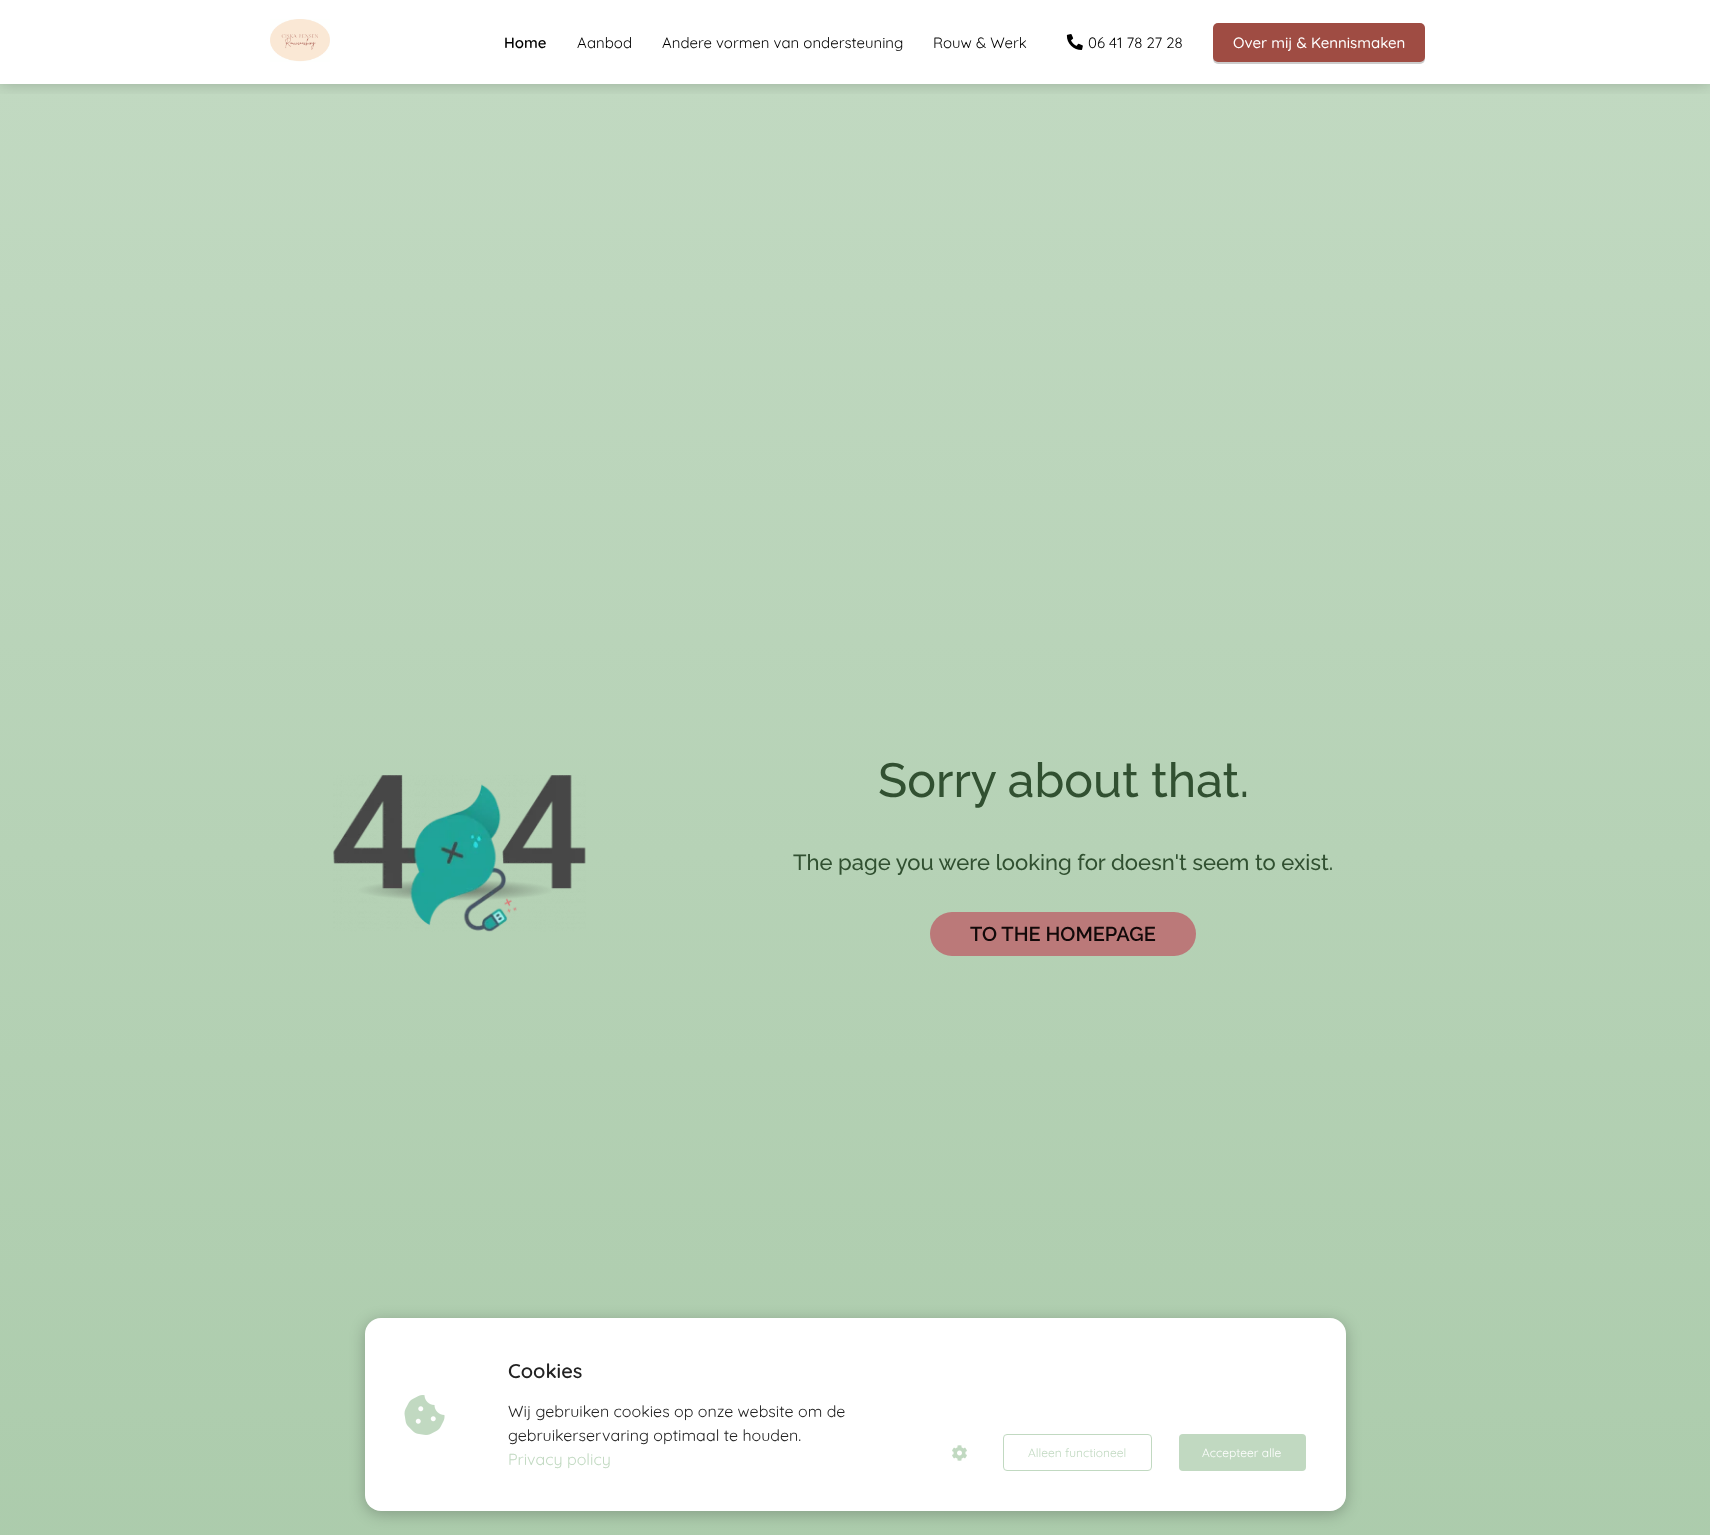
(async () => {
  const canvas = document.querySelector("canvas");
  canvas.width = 1710;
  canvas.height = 1535;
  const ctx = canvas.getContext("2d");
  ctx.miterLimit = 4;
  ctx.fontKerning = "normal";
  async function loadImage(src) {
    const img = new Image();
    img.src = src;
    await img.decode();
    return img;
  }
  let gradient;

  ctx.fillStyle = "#ffffff";
  ctx.fillRect(0, 0, 1710, 1535);
  gradient = ctx.createLinearGradient(855, 84, 855, 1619);
  gradient.addColorStop(0, "#c1d9c1");
  gradient.addColorStop(1, "#abcbab");
  ctx.fillStyle = gradient;
  ctx.fillRect(0, 84, 1710, 1451);
  ctx.save();
  ctx.beginPath();
  ctx.rect(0, 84, 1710, 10);
  ctx.clip();
  ctx.fillStyle = "rgba(0, 0, 0, 0.2)";
  ctx.filter = "blur(7.5px)";
  ctx.beginPath();
  ctx.rect(0, 0, 1710, 84);
  ctx.fill();
  ctx.filter = "none";
  ctx.restore();
  ctx.drawImage(await loadImage("img/1.png"), 270, 19, 60, 43);
  ctx.drawImage(await loadImage("img/2.png"), 1066, 34, 17, 16);
  ctx.fillStyle = "rgba(0, 0, 0, 0.2)";
  ctx.filter = "blur(0.5px)";
  ctx.beginPath();
  ctx.roundRect(1213, 25, 212, 39, 5);
  ctx.fill();
  ctx.filter = "none";
  ctx.fillStyle = "#9f4c43";
  ctx.beginPath();
  ctx.roundRect(1213, 23, 212, 39, 5);
  ctx.fill();
  ctx.drawImage(await loadImage("img/3.png"), 333, 775, 253, 157);
  ctx.fillStyle = "#bb7979";
  ctx.beginPath();
  ctx.roundRect(930, 912, 266, 44, 22);
  ctx.fill();
  ctx.fillStyle = "rgba(0, 0, 0, 0.24)";
  ctx.filter = "blur(7.5px)";
  ctx.beginPath();
  ctx.roundRect(365, 1321, 981, 193, 16);
  ctx.fill();
  ctx.filter = "none";
  ctx.fillStyle = "#ffffff";
  ctx.beginPath();
  ctx.roundRect(365, 1318, 981, 193, 16);
  ctx.fill();
  ctx.drawImage(await loadImage("img/4.png"), 404, 1395, 41, 40);
  ctx.drawImage(await loadImage("img/5.png"), 952, 1445, 15, 16);
  ctx.beginPath();
  ctx.roundRect(1003.5, 1434.5, 148, 36, 3.5);
  ctx.strokeStyle = "#c1d9c1";
  ctx.stroke();
  ctx.fillStyle = "#c1d9c1";
  ctx.beginPath();
  ctx.roundRect(1179, 1434, 127, 37, 4);
  ctx.fill();
  ctx.font = "600 15px Quicksand";
  ctx.fillStyle = "#000000";
  ctx.fillText("Home", 504, 48);
  ctx.font = "15px Quicksand";
  for (const [text, x, y] of [
    ["Aanbod", 577, 48],
    ["Andere vormen van ondersteuning", 662, 48],
    ["Rouw & Werk", 933, 48],
    ["06 41 78 27 28", 1088, 48],
  ]) {
    ctx.fillText(text, x, y);
  }
  ctx.font = "500 15px Quicksand";
  ctx.fillStyle = "#ffffff";
  ctx.fillText("Over mij & Kennismaken", 1233, 48);
  ctx.font = "500 48px Raleway";
  ctx.fillStyle = "#315031";
  ctx.fillText("Sorry about that.", 878, 797);
  ctx.font = "500 22px Raleway";
  ctx.fillText("The page you were looking for doesn't seem to exist.", 793, 870);
  ctx.font = "600 20px Raleway";
  ctx.fillStyle = "#120909";
  ctx.fillText("TO THE HOMEPAGE", 970, 941);
  ctx.font = "600 20px Quicksand";
  ctx.fillStyle = "#222222";
  ctx.fillText("Cookies", 508, 1378);
  ctx.font = "16px Quicksand";
  ctx.fillText("Wij gebruiken cookies op onze website om de", 508, 1417);
  ctx.fillText("gebruikerservaring optimaal te houden.", 508, 1441);
  ctx.fillStyle = "#c1d9c1";
  ctx.fillText("Privacy policy", 508, 1465);
  ctx.font = "12px Quicksand";
  ctx.fillText("Alleen functioneel", 1028, 1457);
  ctx.fillStyle = "#ffffff";
  ctx.fillText("Accepteer alle", 1202, 1457);
})();
